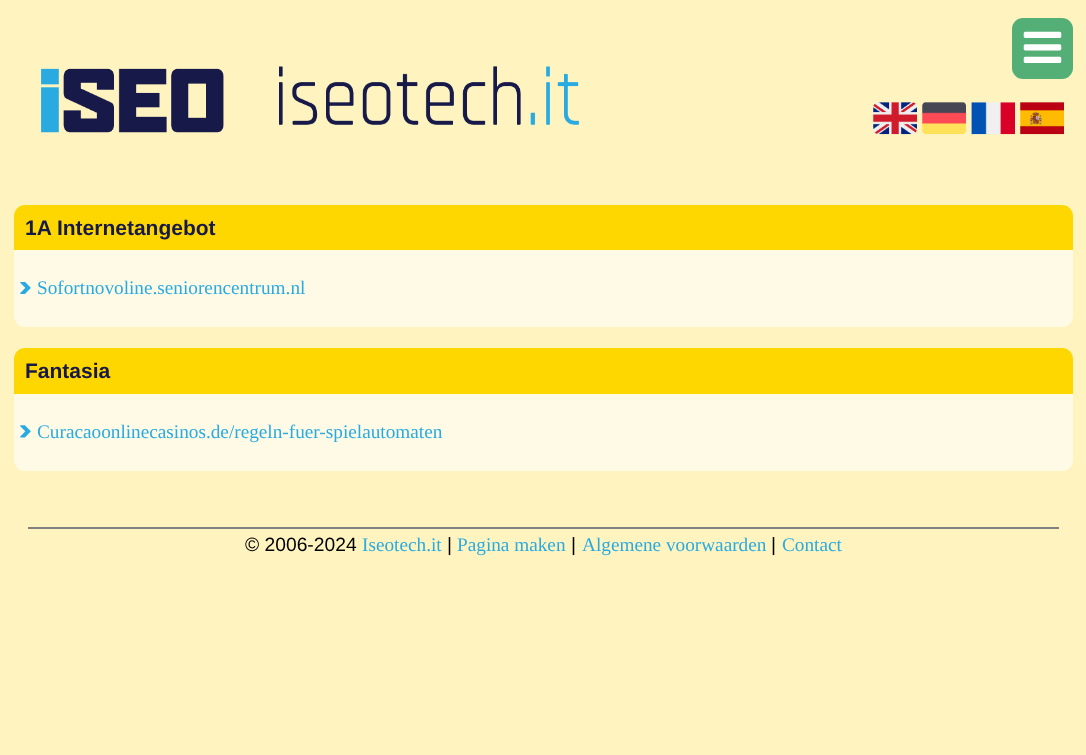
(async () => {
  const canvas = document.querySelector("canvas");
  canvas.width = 1086;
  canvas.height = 755;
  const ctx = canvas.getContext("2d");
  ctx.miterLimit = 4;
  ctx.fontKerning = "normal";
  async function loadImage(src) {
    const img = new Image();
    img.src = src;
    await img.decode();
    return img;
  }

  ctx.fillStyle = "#fff4bf";
  ctx.fillRect(0, 0, 1086, 755);
  ctx.fillStyle = "#54af76";
  ctx.beginPath();
  ctx.roundRect(1012, 18, 61, 61, 11);
  ctx.fill();
  ctx.drawImage(await loadImage("img/1.png"), 1023, 31, 39, 32);
  ctx.drawImage(await loadImage("img/2.png"), 41, 66, 539, 67);
  ctx.drawImage(await loadImage("img/3.png"), 873, 102, 44, 33);
  ctx.drawImage(await loadImage("img/4.png"), 922, 102, 44, 33);
  ctx.drawImage(await loadImage("img/5.png"), 971, 102, 44, 33);
  ctx.drawImage(await loadImage("img/6.png"), 1020, 102, 44, 33);
  ctx.fillStyle = "#fffae5";
  ctx.beginPath();
  ctx.roundRect(14, 205, 1059, 122, 11);
  ctx.fill();
  ctx.fillStyle = "#ffd700";
  ctx.beginPath();
  ctx.roundRect(14, 205, 1059, 45, [11, 11, 0, 0]);
  ctx.fill();
  ctx.drawImage(await loadImage("img/7.png"), 20, 282, 11, 12);
  ctx.fillStyle = "#fffae5";
  ctx.beginPath();
  ctx.roundRect(14, 348, 1059, 123, 11);
  ctx.fill();
  ctx.fillStyle = "#ffd700";
  ctx.beginPath();
  ctx.roundRect(14, 348, 1059, 46, [11, 11, 0, 0]);
  ctx.fill();
  ctx.drawImage(await loadImage("img/8.png"), 20, 425, 11, 13);
  ctx.fillStyle = "#808080";
  ctx.fillRect(28, 527, 1031, 2);
  ctx.font = "bold 21px Liberation Sans";
  ctx.fillStyle = "#171949";
  ctx.fillText("1A Internetangebot", 25, 235);
  ctx.font = "19.25px Liberation Serif";
  ctx.fillStyle = "#29abe2";
  ctx.fillText("Sofortnovoline.seniorencentrum.nl", 37, 294);
  ctx.font = "bold 21px Liberation Sans";
  ctx.fillStyle = "#171949";
  ctx.fillText("Fantasia", 25, 378);
  ctx.font = "19.25px Liberation Serif";
  ctx.fillStyle = "#29abe2";
  ctx.fillText("Curacaoonlinecasinos.de/regeln-fuer-spielautomaten", 37, 438);
  ctx.font = "19.25px Liberation Sans";
  ctx.fillStyle = "#000000";
  ctx.fillText("© 2006-2024", 245, 551);
  ctx.font = "19.25px Liberation Serif";
  ctx.fillStyle = "#29abe2";
  ctx.fillText("Iseotech.it", 362, 551);
  ctx.font = "19.25px Liberation Sans";
  ctx.fillStyle = "#000000";
  ctx.fillText("|", 447, 551);
  ctx.font = "19.25px Liberation Serif";
  ctx.fillStyle = "#29abe2";
  ctx.fillText("Pagina maken", 457, 551);
  ctx.font = "19.25px Liberation Sans";
  ctx.fillStyle = "#000000";
  ctx.fillText("|", 571, 551);
  ctx.font = "19.25px Liberation Serif";
  ctx.fillStyle = "#29abe2";
  ctx.fillText("Algemene voorwaarden", 582, 551);
  ctx.font = "19.25px Liberation Sans";
  ctx.fillStyle = "#000000";
  ctx.fillText("|", 771, 551);
  ctx.font = "19.25px Liberation Serif";
  ctx.fillStyle = "#29abe2";
  ctx.fillText("Contact", 782, 551);
})();
